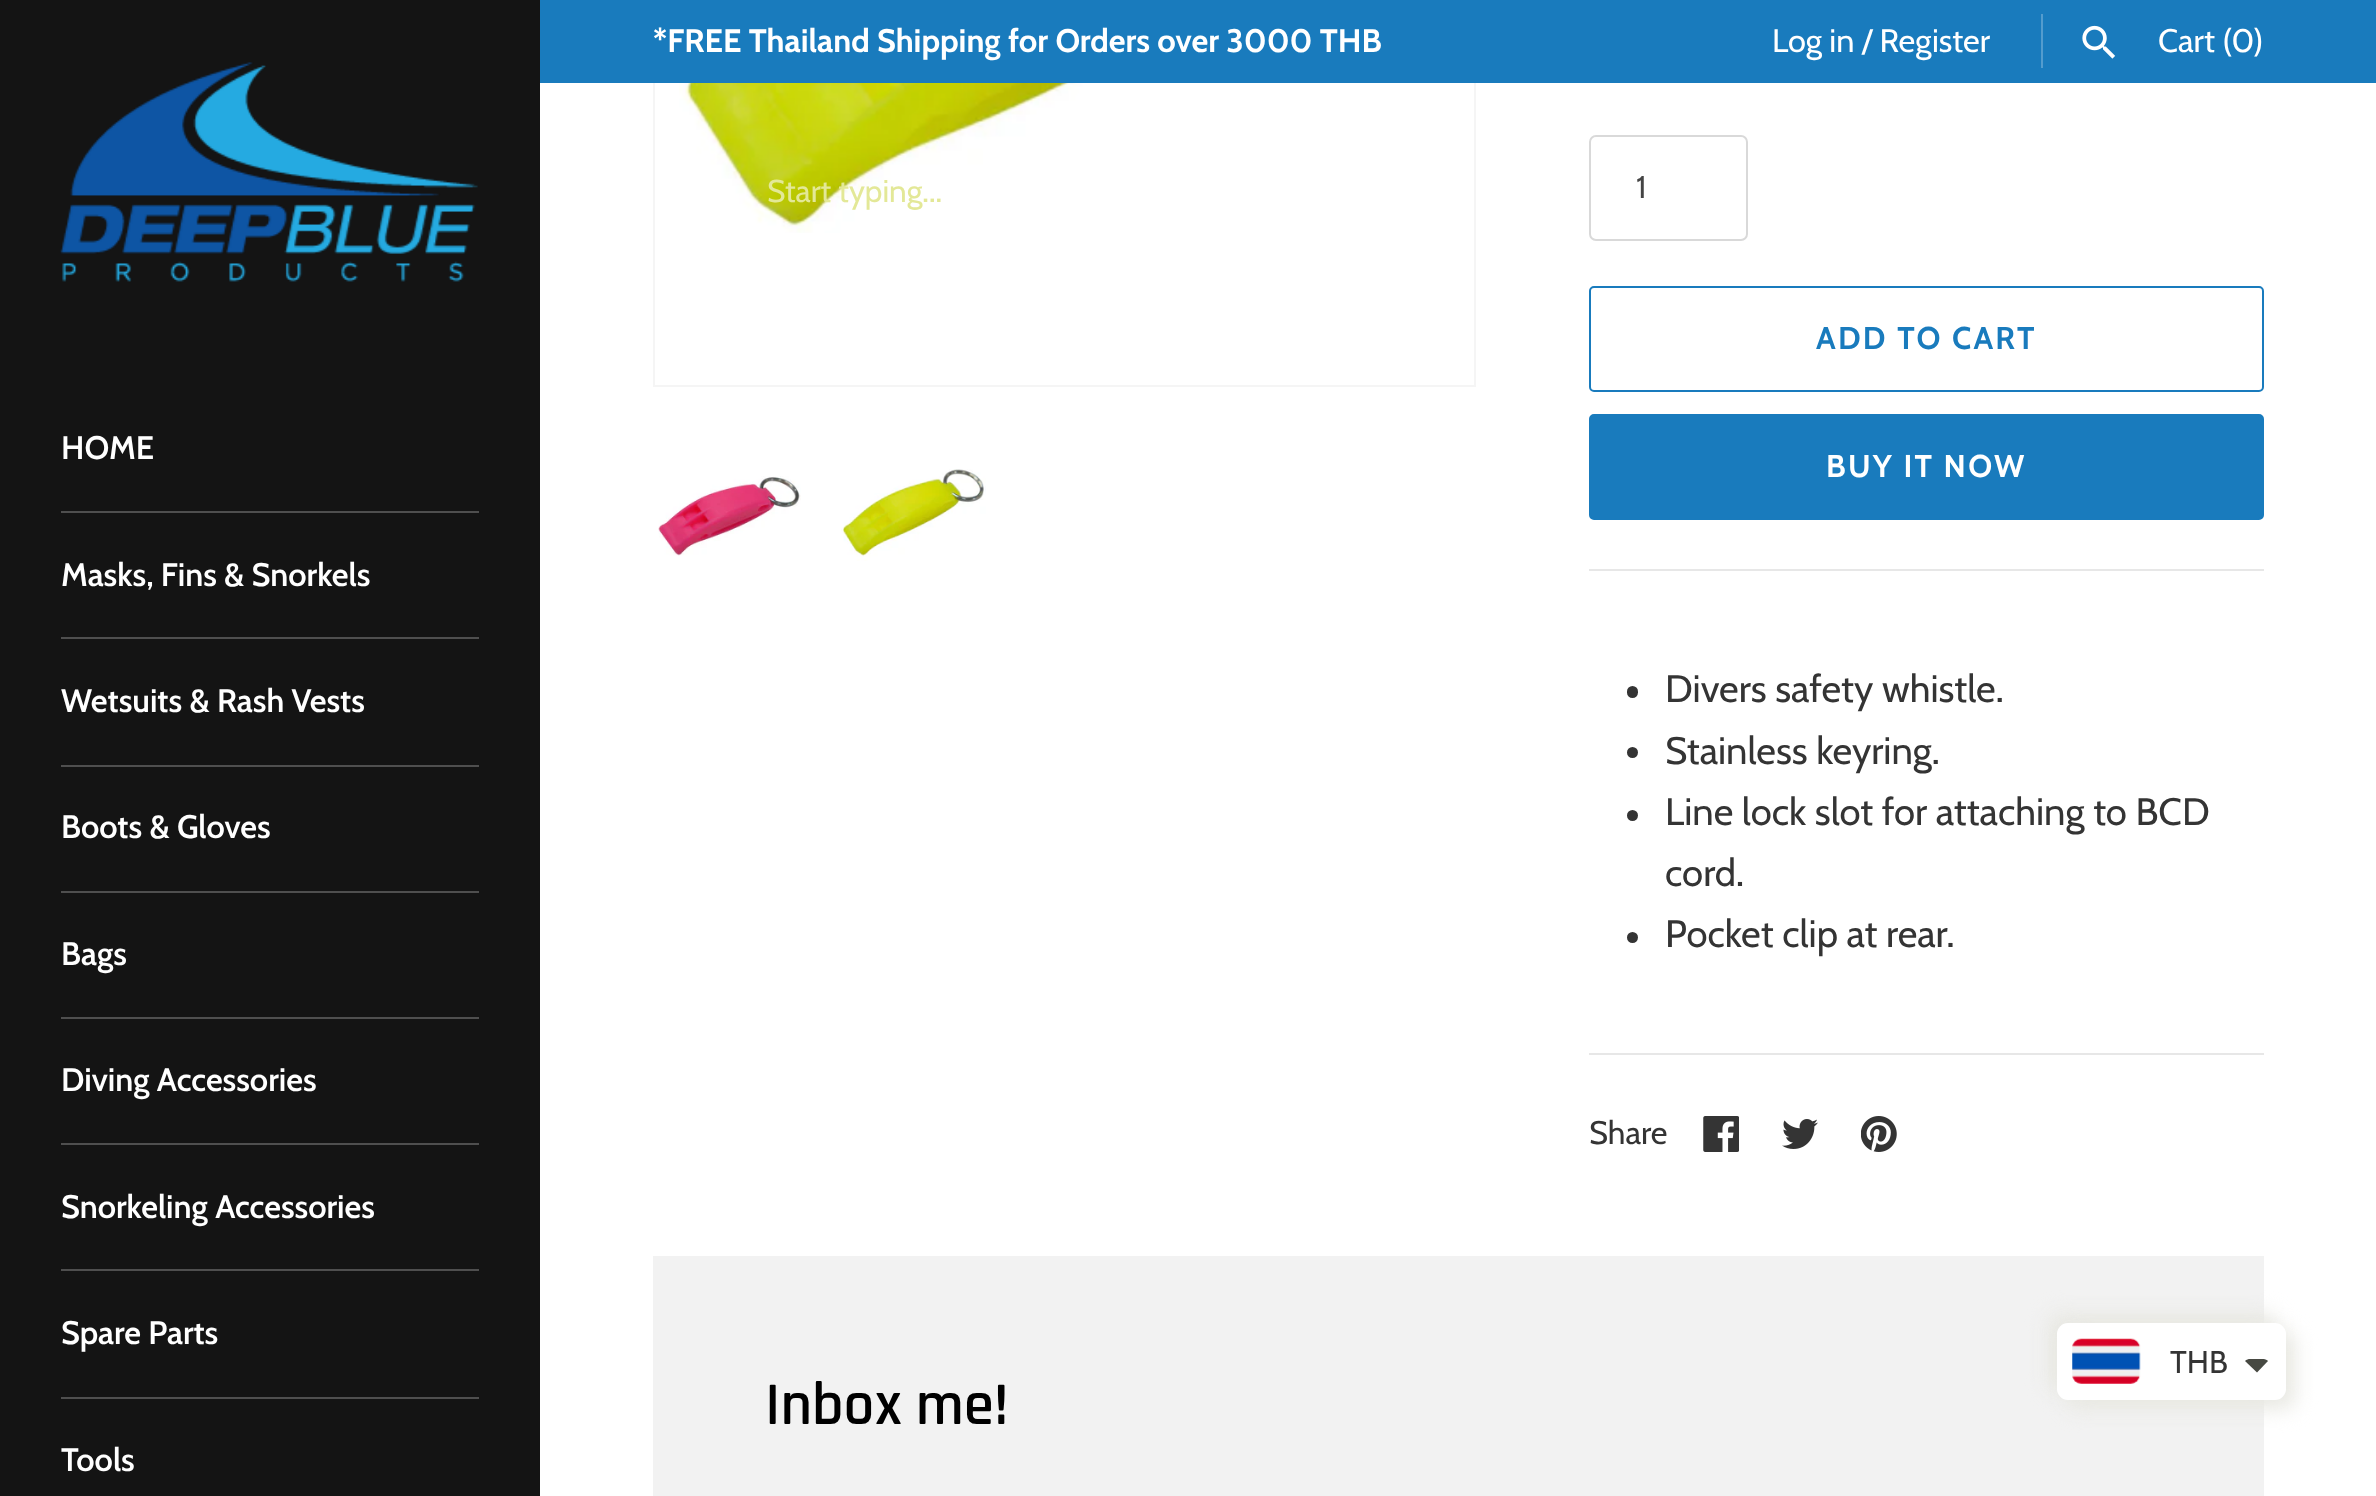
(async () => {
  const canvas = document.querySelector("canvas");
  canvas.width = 2376;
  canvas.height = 1496;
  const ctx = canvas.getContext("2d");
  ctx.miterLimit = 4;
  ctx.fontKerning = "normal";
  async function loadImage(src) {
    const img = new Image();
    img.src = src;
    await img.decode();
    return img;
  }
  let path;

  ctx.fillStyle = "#ffffff";
  ctx.fillRect(0, 0, 2376, 1496);
  ctx.strokeStyle = "#f5f5f5";
  ctx.lineWidth = 2;
  ctx.strokeRect(654, -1, 821, 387);
  ctx.fillStyle = "#197bbd";
  ctx.fillRect(540, 0, 1836, 83);
  ctx.fillStyle = "#539cce";
  ctx.fillRect(2041, 14, 2, 54);
  ctx.drawImage(await loadImage("img/1.png"), 2082, 25, 34, 34);
  ctx.fillStyle = "#141414";
  ctx.fillRect(0, 0, 540, 1496);
  ctx.drawImage(await loadImage("img/2.png"), 60, 62, 418, 220);
  for (const [x, y, w, h, color] of [
    [61, 511, 418, 2, "#4f4f4f"],
    [61, 637, 418, 2, "#4f4f4f"],
    [61, 765, 418, 2, "#4f4f4f"],
    [61, 891, 418, 2, "#4f4f4f"],
    [61, 1017, 418, 2, "#4f4f4f"],
    [61, 1143, 418, 2, "#4f4f4f"],
    [61, 1269, 418, 2, "#4f4f4f"],
    [61, 1397, 418, 2, "#4f4f4f"],
  ]) {
    ctx.fillStyle = color;
    ctx.fillRect(x, y, w, h);
  }
  ctx.drawImage(await loadImage("img/3.png"), 679, 83, 558, 150);
  ctx.drawImage(await loadImage("img/4.png"), 658, 476, 143, 80);
  ctx.drawImage(await loadImage("img/5.png"), 841, 469, 145, 92);
  ctx.beginPath();
  ctx.roundRect(1590, 136, 157, 104, 6);
  ctx.strokeStyle = "#d9d9d9";
  ctx.stroke();
  ctx.beginPath();
  ctx.roundRect(1590, 287, 673, 104, 4);
  ctx.strokeStyle = "#197bbd";
  ctx.stroke();
  ctx.fillStyle = "#197bbd";
  ctx.beginPath();
  ctx.roundRect(1590, 415, 673, 104, 4);
  ctx.fill();
  ctx.stroke();
  ctx.fillStyle = "#e7e7e7";
  ctx.fillRect(1589, 569, 675, 2);
  ctx.fillStyle = "#343434";
  ctx.beginPath();
  ctx.roundRect(1627, 686, 11, 12, 5.5);
  ctx.fill();
  ctx.beginPath();
  ctx.arc(1632.5, 752.5, 5.5, 0, Math.PI * 2);
  ctx.fill();
  ctx.beginPath();
  ctx.arc(1632.5, 815.5, 5.5, 0, Math.PI * 2);
  ctx.fill();
  ctx.beginPath();
  ctx.arc(1632.5, 937.5, 5.5, 0, Math.PI * 2);
  ctx.fill();
  ctx.fillStyle = "#e7e7e7";
  ctx.fillRect(1589, 1053, 675, 2);
  ctx.drawImage(await loadImage("img/6.png"), 1703, 1116, 36, 36);
  ctx.drawImage(await loadImage("img/7.png"), 1782, 1119, 36, 30);
  ctx.drawImage(await loadImage("img/8.png"), 1861, 1116, 36, 36);
  ctx.fillStyle = "#f2f2f2";
  ctx.fillRect(653, 1256, 1611, 240);
  ctx.fillStyle = "#e8e8e2";
  ctx.filter = "blur(10px)";
  ctx.beginPath();
  ctx.roundRect(2048, 1314, 229, 77, 11);
  ctx.fill();
  ctx.filter = "none";
  ctx.filter = "blur(10px)";
  ctx.beginPath();
  ctx.roundRect(2066, 1332, 229, 77, 11);
  ctx.fill();
  ctx.filter = "none";
  ctx.fillStyle = "#ffffff";
  ctx.beginPath();
  ctx.roundRect(2057, 1323, 229, 77, 11);
  ctx.fill();
  ctx.drawImage(await loadImage("img/9.png"), 2072, 1338, 69, 46);
  ctx.fillStyle = "#474942";
  path = new Path2D("M2250 1359C2248.5 1359 2246.5 1359.5 2245 1361L2257 1372.5L2268 1361C2267 1360 2265.5 1359 2263.5 1359Z");
  ctx.fill(path);
  ctx.font = "bold 32.5px Cabin";
  ctx.fillStyle = "#ffffff";
  ctx.fillText("*FREE Thailand Shipping for Orders over 3000 THB", 653, 52);
  ctx.font = "32.5px Cabin";
  ctx.fillText("Log in / Register", 1772, 52);
  ctx.fillText("Cart (0)", 2158, 52);
  ctx.font = "31.5px Cabin";
  ctx.fillStyle = "#e3e897";
  ctx.fillText("Start typing...", 767, 202);
  ctx.font = "600 32.5px Cabin";
  ctx.fillStyle = "#ffffff";
  for (const [text, x, y] of [
    ["HOME", 61, 459],
    ["Masks, Fins & Snorkels", 61, 586],
    ["Wetsuits & Rash Vests", 61, 712],
    ["Boots & Gloves", 61, 838],
    ["Bags", 61, 965],
    ["Diving Accessories", 61, 1091],
    ["Snorkeling Accessories", 61, 1218],
    ["Spare Parts", 61, 1344],
    ["Tools", 61, 1471],
  ]) {
    ctx.fillText(text, x, y);
  }
  ctx.font = "31.5px Cabin";
  ctx.fillStyle = "#444444";
  ctx.fillText("1", 1636, 198);
  ctx.letterSpacing = "2.25px";
  ctx.font = "bold 31.5px Cabin";
  ctx.fillStyle = "#197bbd";
  ctx.fillText("ADD TO CART", 1816, 349);
  ctx.fillStyle = "#ffffff";
  ctx.fillText("BUY IT NOW", 1826, 477);
  ctx.letterSpacing = "0px";
  ctx.font = "38.25px Cabin";
  ctx.fillStyle = "#343434";
  for (const [text, x, y] of [
    ["Divers safety whistle.", 1665, 702],
    ["Stainless keyring.", 1665, 764],
    ["Line lock slot for attaching to BCD", 1665, 825],
    ["cord.", 1665, 886],
    ["Pocket clip at rear.", 1665, 947],
  ]) {
    ctx.fillText(text, x, y);
  }
  ctx.font = "32.5px Cabin";
  ctx.fillText("Share", 1589, 1144);
  ctx.font = "600 61px Rajdhani";
  ctx.fillStyle = "#000000";
  ctx.fillText("Inbox me!", 765, 1424);
  ctx.font = "31.5px Cabin";
  ctx.fillStyle = "#343434";
  ctx.fillText("THB", 2170, 1373);
})();
